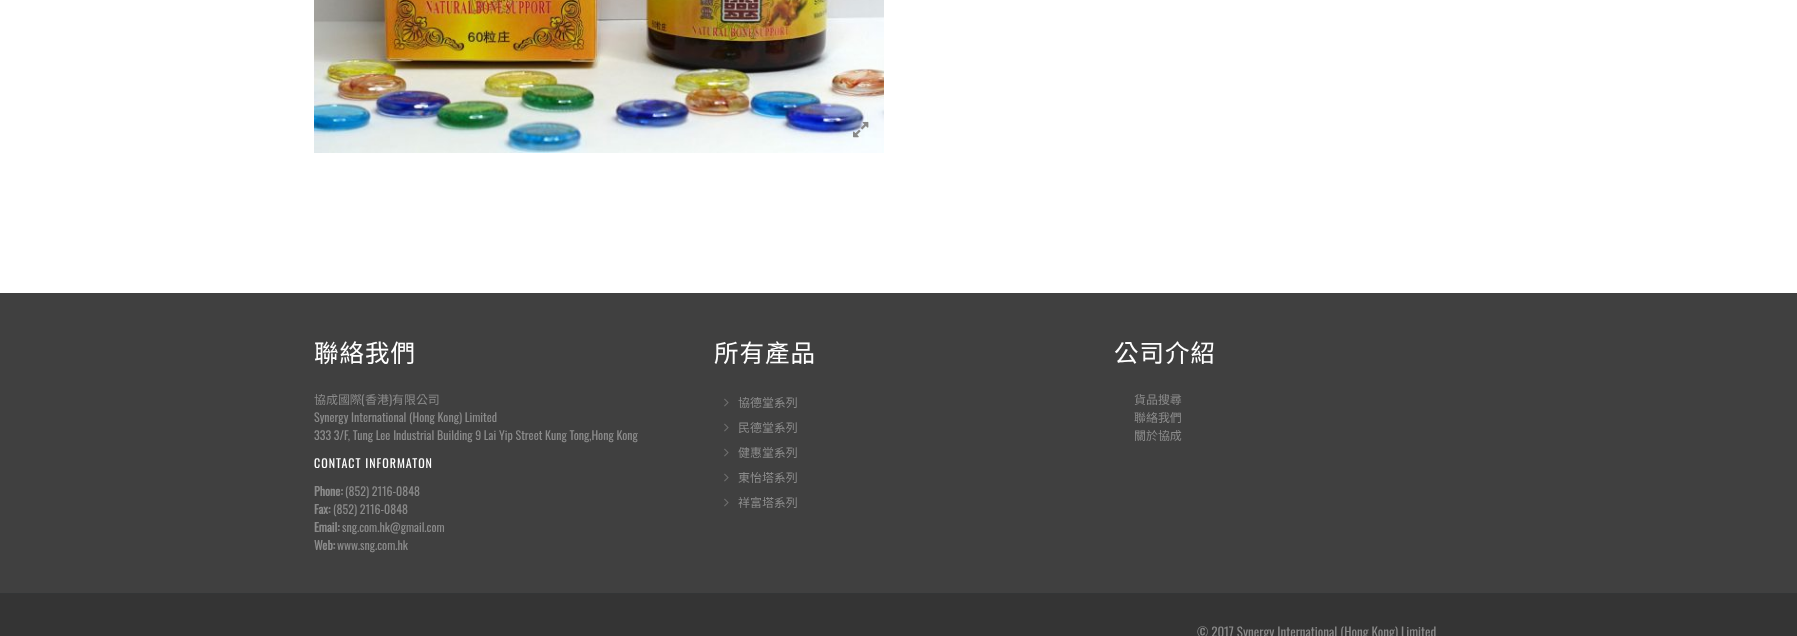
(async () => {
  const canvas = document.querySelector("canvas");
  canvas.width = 1797;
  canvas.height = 636;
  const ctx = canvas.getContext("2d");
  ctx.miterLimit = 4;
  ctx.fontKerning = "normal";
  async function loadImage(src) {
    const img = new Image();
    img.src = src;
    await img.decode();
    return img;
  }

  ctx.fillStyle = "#ffffff";
  ctx.fillRect(0, 0, 1797, 636);
  ctx.drawImage(await loadImage("img/1.png"), 314, 0, 570, 153);
  ctx.drawImage(await loadImage("img/2.png"), 853, 121, 16, 17);
  ctx.fillStyle = "#404040";
  ctx.fillRect(0, 293, 1797, 300);
  ctx.drawImage(await loadImage("img/3.png"), 724, 398, 5, 9);
  ctx.drawImage(await loadImage("img/3.png"), 724, 423, 5, 9);
  ctx.drawImage(await loadImage("img/3.png"), 724, 448, 5, 9);
  ctx.drawImage(await loadImage("img/3.png"), 724, 473, 5, 9);
  ctx.drawImage(await loadImage("img/3.png"), 724, 498, 5, 9);
  ctx.fillStyle = "#343434";
  ctx.fillRect(0, 594, 1797, 42);
  ctx.fillStyle = "#333536";
  ctx.fillRect(0, 593, 1797, 1);
  ctx.letterSpacing = "1px";
  ctx.font = "24.5px Noto Sans CJK TC";
  ctx.fillStyle = "#ffffff";
  ctx.fillText("聯絡我們", 314, 362);
  ctx.letterSpacing = "0px";
  ctx.font = "11.95px Noto Sans CJK TC";
  ctx.fillStyle = "#8b8b8b";
  ctx.fillText("協成國際", 314, 404);
  ctx.font = "11.95px Oswald";
  ctx.fillText("(", 361, 404);
  ctx.font = "11.95px Noto Sans CJK TC";
  ctx.fillText("香港", 365, 404);
  ctx.font = "11.95px Oswald";
  ctx.fillText(")", 389, 404);
  ctx.font = "11.95px Noto Sans CJK TC";
  ctx.fillText("有限公司", 392, 404);
  ctx.font = "11.95px Oswald";
  ctx.fillText("Synergy International (Hong Kong) Limited", 314, 422);
  ctx.fillText("333 3/F, Tung Lee Industrial Building 9 Lai Yip Street Kung Tong,Hong Kong", 314, 440);
  ctx.letterSpacing = "1px";
  ctx.font = "12px Oswald";
  ctx.fillStyle = "#ffffff";
  ctx.fillText("CONTACT INFORMATON", 314, 468);
  ctx.letterSpacing = "0px";
  ctx.font = "bold 11.95px Oswald";
  ctx.fillStyle = "#8b8b8b";
  ctx.fillText("Phone:", 314, 496);
  ctx.font = "11.95px Oswald";
  ctx.fillText("(852) 2116-0848", 345, 496);
  ctx.font = "bold 11.95px Oswald";
  ctx.fillText("Fax:", 314, 514);
  ctx.font = "11.95px Oswald";
  ctx.fillText("(852) 2116-0848", 333, 514);
  ctx.font = "bold 11.95px Oswald";
  ctx.fillText("Email:", 314, 532);
  ctx.font = "11.95px Oswald";
  ctx.fillText("sng.com.hk@gmail.com", 342, 532);
  ctx.font = "bold 11.95px Oswald";
  ctx.fillText("Web:", 314, 550);
  ctx.font = "11.95px Oswald";
  ctx.fillText("www.sng.com.hk", 337, 550);
  ctx.letterSpacing = "1px";
  ctx.font = "24.5px Noto Sans CJK TC";
  ctx.fillStyle = "#ffffff";
  ctx.fillText("所有產品", 714, 362);
  ctx.letterSpacing = "0px";
  ctx.font = "11.95px Noto Sans CJK TC";
  ctx.fillStyle = "#8b8b8b";
  for (const [text, x, y] of [
    ["協德堂系列", 738, 407],
    ["民德堂系列", 738, 432],
    ["健惠堂系列", 738, 457],
    ["東怡塔系列", 738, 482],
    ["祥富塔系列", 738, 507],
  ]) {
    ctx.fillText(text, x, y);
  }
  ctx.letterSpacing = "1px";
  ctx.font = "24.5px Noto Sans CJK TC";
  ctx.fillStyle = "#ffffff";
  ctx.fillText("公司介紹", 1114, 362);
  ctx.letterSpacing = "0px";
  ctx.font = "11.95px Noto Sans CJK TC";
  ctx.fillStyle = "#8b8b8b";
  for (const [text, x, y] of [
    ["貨品搜尋", 1134, 404],
    ["聯絡我們", 1134, 422],
    ["關於協成", 1134, 440],
  ]) {
    ctx.fillText(text, x, y);
  }
  ctx.font = "13px Oswald";
  ctx.fillText("© 2017 Synergy International (Hong Kong) Limited", 1197, 637);
})();
